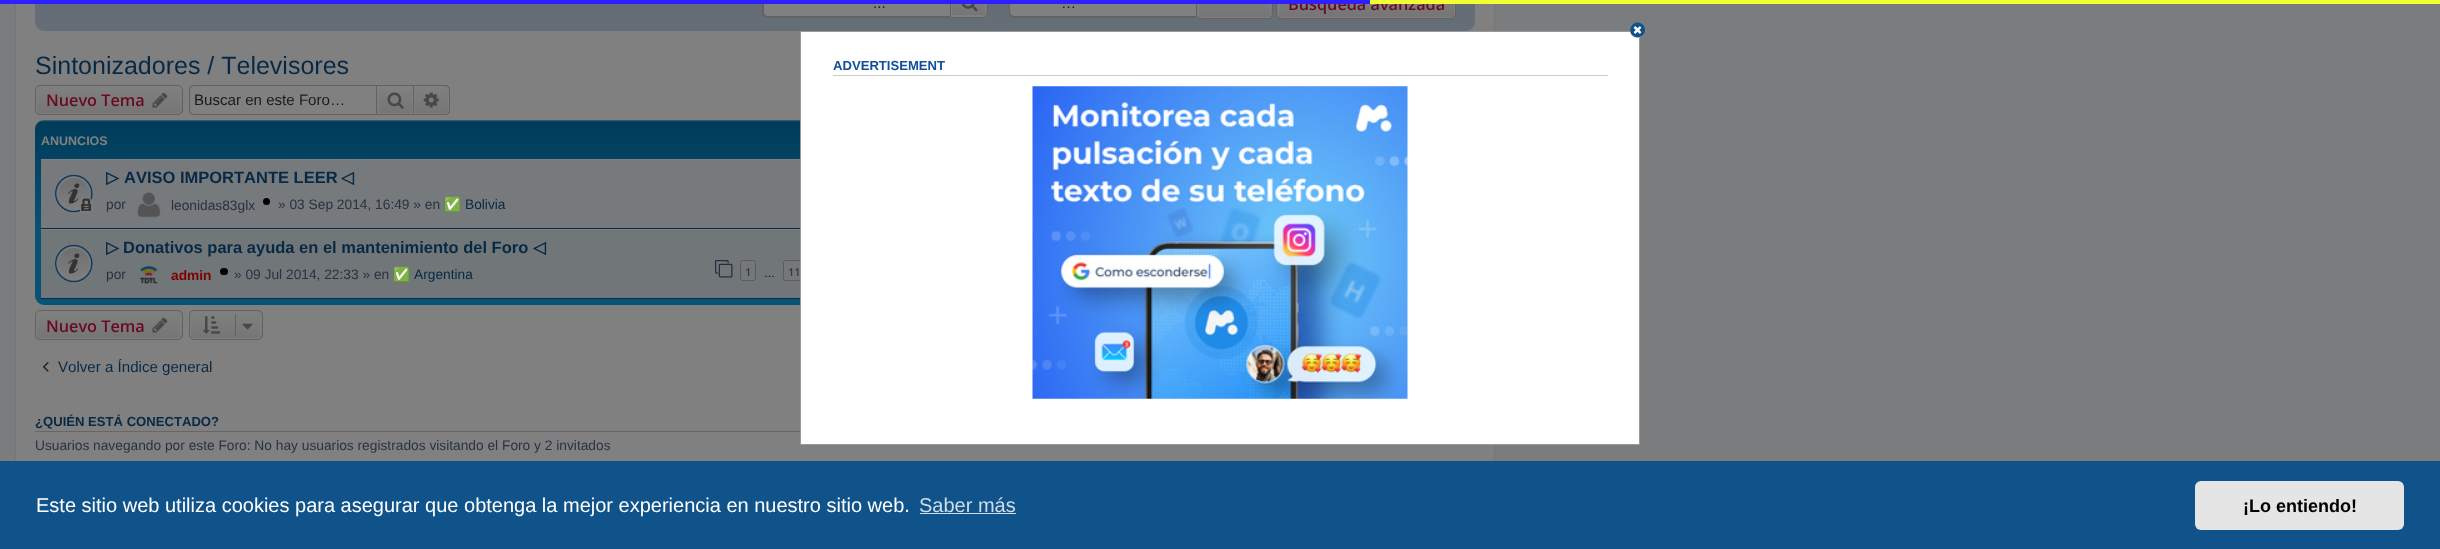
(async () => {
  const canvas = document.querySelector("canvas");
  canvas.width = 2440;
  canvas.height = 549;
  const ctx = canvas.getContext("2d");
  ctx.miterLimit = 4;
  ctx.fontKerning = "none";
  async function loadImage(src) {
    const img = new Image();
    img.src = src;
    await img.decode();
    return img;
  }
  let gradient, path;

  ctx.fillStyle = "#7b7c7d";
  ctx.fillRect(0, 0, 2440, 549);
  ctx.fillStyle = "#808080";
  ctx.fillRect(16, 4, 1478, 457);
  ctx.strokeStyle = "#737577";
  ctx.strokeRect(15.5, -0.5, 1479, 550);
  ctx.fillStyle = "#656e76";
  ctx.beginPath();
  ctx.roundRect(35, -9, 1440, 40, 9);
  ctx.fill();
  ctx.fillStyle = "#808080";
  path = new Path2D("M768-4H950V16H768C766 16 764 14 764 12V0C764-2 766-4 768-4Z");
  ctx.fill(path);
  ctx.fillStyle = "#646260";
  path = new Path2D("M768-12H950V18H768C765 18 762 15 762 12V-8C762-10 765-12 768-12ZM768-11H950V16H768C765 16 764 15 764 12V-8C764-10 765-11 768-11Z");
  ctx.fill(path, "evenodd");
  gradient = ctx.createLinearGradient(969, -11, 969, 16);
  gradient.addColorStop(0, "#808080");
  gradient.addColorStop(1, "#757575");
  ctx.fillStyle = gradient;
  ctx.fillRect(952, 4, 36, 12);
  ctx.save();
  path = new Path2D("M950-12H983C986-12 988-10 988-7V13C988 16 986 18 983 18H950Z");
  ctx.clip(path);
  gradient = ctx.createLinearGradient(969, 16, 969, 44);
  gradient.addColorStop(0, "#808080");
  gradient.addColorStop(1, "#757575");
  ctx.fillStyle = gradient;
  ctx.fillRect(950, 16, 38, 2);
  ctx.restore();
  path = new Path2D("M951.5-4.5H982C984-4.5 985.5-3 985.5-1V12C985.5 14 984 15.5 982 15.5H951.5Z");
  ctx.strokeStyle = "#808080";
  ctx.stroke(path);
  path = new Path2D("M950.5-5.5H983C985.5-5.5 987.5-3.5 987.5-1V13C987.5 15.5 985.5 17.5 983 17.5H950.5Z");
  ctx.strokeStyle = "#646260";
  ctx.stroke(path);
  ctx.drawImage(await loadImage("img/1.png"), 961, 4, 17, 8);
  ctx.fillStyle = "#808080";
  path = new Path2D("M1014-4H1196V16H1014C1012 16 1010 14 1010 12V0C1010-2 1012-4 1014-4Z");
  ctx.fill(path);
  ctx.fillStyle = "#646260";
  path = new Path2D("M1014-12H1196V18H1014C1011 18 1009 15 1009 12V-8C1009-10 1011-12 1014-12ZM1014-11H1196V16H1014C1012 16 1010 15 1010 12V-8C1010-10 1012-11 1014-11Z");
  ctx.fill(path, "evenodd");
  ctx.save();
  ctx.beginPath();
  ctx.roundRect(1196, -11, 77, 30, 5);
  ctx.clip();
  gradient = ctx.createLinearGradient(1234, -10, 1234, 18);
  gradient.addColorStop(0, "#808080");
  gradient.addColorStop(1, "#757575");
  ctx.fillStyle = gradient;
  ctx.fillRect(1196, 4, 77, 14);
  ctx.restore();
  ctx.beginPath();
  ctx.roundRect(1198.5, -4.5, 72, 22, 3.5);
  ctx.strokeStyle = "#808080";
  ctx.stroke();
  ctx.beginPath();
  ctx.roundRect(1196.5, -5.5, 76, 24, 4.5);
  ctx.strokeStyle = "#646260";
  ctx.stroke();
  ctx.save();
  ctx.beginPath();
  ctx.roundRect(1276, -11, 180, 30, 5);
  ctx.clip();
  gradient = ctx.createLinearGradient(1366, -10, 1366, 18);
  gradient.addColorStop(0, "#808080");
  gradient.addColorStop(1, "#757575");
  ctx.fillStyle = gradient;
  ctx.fillRect(1276, 4, 180, 14);
  ctx.restore();
  ctx.beginPath();
  ctx.roundRect(1278.5, -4.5, 176, 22, 3.5);
  ctx.strokeStyle = "#808080";
  ctx.stroke();
  ctx.beginPath();
  ctx.roundRect(1276.5, -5.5, 179, 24, 4.5);
  ctx.strokeStyle = "#646260";
  ctx.stroke();
  ctx.save();
  ctx.beginPath();
  ctx.roundRect(35, 85, 148, 30, 5);
  ctx.clip();
  gradient = ctx.createLinearGradient(109, 86, 109, 114);
  gradient.addColorStop(0, "#808080");
  gradient.addColorStop(1, "#757575");
  ctx.fillStyle = gradient;
  ctx.fillRect(35, 86, 148, 28);
  ctx.restore();
  ctx.beginPath();
  ctx.roundRect(36.5, 86.5, 144, 27, 3.5);
  ctx.strokeStyle = "#808080";
  ctx.stroke();
  ctx.beginPath();
  ctx.roundRect(35.5, 85.5, 147, 29, 4.5);
  ctx.strokeStyle = "#646260";
  ctx.stroke();
  ctx.drawImage(await loadImage("img/2.png"), 152, 92, 16, 16);
  path = new Path2D("M194 85H376V115H194C191 115 189 113 189 110V90C189 87 191 85 194 85ZM194 86H376V114H194C192 114 190 112 190 110V90C190 88 192 86 194 86Z");
  ctx.fill(path, "evenodd");
  gradient = ctx.createLinearGradient(395, 86, 395, 114);
  gradient.addColorStop(0, "#808080");
  gradient.addColorStop(1, "#757575");
  ctx.fillStyle = gradient;
  ctx.fillRect(377, 92, 35, 22);
  ctx.strokeStyle = "#808080";
  ctx.strokeRect(378.5, 86.5, 34, 27);
  ctx.strokeStyle = "#646260";
  ctx.strokeRect(376.5, 85.5, 37, 29);
  ctx.drawImage(await loadImage("img/3.png"), 387, 92, 17, 17);
  gradient = ctx.createLinearGradient(431, 86, 431, 114);
  gradient.addColorStop(0, "#808080");
  gradient.addColorStop(1, "#757575");
  ctx.fillStyle = gradient;
  ctx.beginPath();
  ctx.roundRect(414.5, 86.5, 34, 27, [0, 3.5, 3.5, 0]);
  ctx.fill();
  ctx.strokeStyle = "#808080";
  ctx.stroke();
  ctx.fillStyle = "#646260";
  path = new Path2D("M414 85H445C448 85 450 87 450 90V110C450 113 448 115 445 115H414ZM414 86H445C447 86 449 88 449 90V110C449 112 447 114 445 114H414Z");
  ctx.fill(path, "evenodd");
  ctx.drawImage(await loadImage("img/4.png"), 423, 92, 16, 16);
  gradient = ctx.createLinearGradient(755, 120, 755, 305);
  gradient.addColorStop(0, "#356780");
  gradient.addColorStop(0.01, "#003b59");
  gradient.addColorStop(0.62, "#095276");
  gradient.addColorStop(1, "#095276");
  ctx.fillStyle = gradient;
  ctx.beginPath();
  ctx.roundRect(35, 120, 1440, 185, 9);
  ctx.fill();
  for (const [x, y, w, h, color] of [
    [41, 160, 759, 68, "#767a7c"],
    [41, 159, 759, 1, "#808080"],
    [41, 228, 759, 1, "#003048"],
  ]) {
    ctx.fillStyle = color;
    ctx.fillRect(x, y, w, h);
  }
  ctx.drawImage(await loadImage("img/5.png"), 55, 174, 38, 39);
  ctx.drawImage(await loadImage("img/6.png"), 137, 192, 24, 26);
  ctx.fillStyle = "#000000";
  ctx.beginPath();
  ctx.arc(266.5, 201.5, 3.5, 0, Math.PI * 2);
  ctx.fill();
  for (const [x, y, w, h, color] of [
    [41, 230, 759, 68, "#717679"],
    [41, 229, 759, 1, "#808080"],
    [41, 298, 759, 1, "#003048"],
  ]) {
    ctx.fillStyle = color;
    ctx.fillRect(x, y, w, h);
  }
  ctx.drawImage(await loadImage("img/7.png"), 55, 244, 38, 39);
  ctx.drawImage(await loadImage("img/8.png"), 140, 266, 18, 18);
  ctx.fillStyle = "#000000";
  ctx.beginPath();
  ctx.roundRect(220, 268, 8, 7, 3.5);
  ctx.fill();
  ctx.drawImage(await loadImage("img/9.png"), 715, 260, 18, 18);
  ctx.fillStyle = "#767777";
  ctx.beginPath();
  ctx.roundRect(740.5, 260.5, 15, 20, 2);
  ctx.fill();
  ctx.strokeStyle = "#5a5d60";
  ctx.stroke();
  ctx.beginPath();
  ctx.roundRect(783.5, 260.5, 22, 20, 2);
  ctx.fill();
  ctx.stroke();
  ctx.save();
  ctx.beginPath();
  ctx.roundRect(35, 310, 148, 30, 5);
  ctx.clip();
  gradient = ctx.createLinearGradient(109, 311, 109, 339);
  gradient.addColorStop(0, "#808080");
  gradient.addColorStop(1, "#757575");
  ctx.fillStyle = gradient;
  ctx.fillRect(35, 311, 148, 28);
  ctx.restore();
  ctx.beginPath();
  ctx.roundRect(36.5, 311.5, 144, 27, 3.5);
  ctx.strokeStyle = "#808080";
  ctx.stroke();
  ctx.beginPath();
  ctx.roundRect(35.5, 310.5, 147, 29, 4.5);
  ctx.strokeStyle = "#646260";
  ctx.stroke();
  ctx.drawImage(await loadImage("img/2.png"), 152, 317, 16, 16);
  ctx.save();
  ctx.beginPath();
  ctx.roundRect(189, 310, 74, 30, 5);
  ctx.clip();
  gradient = ctx.createLinearGradient(226, 311, 226, 339);
  gradient.addColorStop(0, "#808080");
  gradient.addColorStop(1, "#757575");
  ctx.fillStyle = gradient;
  ctx.fillRect(189, 311, 74, 28);
  ctx.restore();
  ctx.beginPath();
  ctx.roundRect(190.5, 311.5, 70, 27, 3.5);
  ctx.strokeStyle = "#808080";
  ctx.stroke();
  ctx.beginPath();
  ctx.roundRect(189.5, 310.5, 73, 29, 4.5);
  ctx.strokeStyle = "#646260";
  ctx.stroke();
  ctx.drawImage(await loadImage("img/10.png"), 202, 316, 18, 18);
  ctx.fillStyle = "#646260";
  ctx.fillRect(235, 314, 1, 22);
  ctx.drawImage(await loadImage("img/11.png"), 242, 323, 11, 7);
  ctx.drawImage(await loadImage("img/12.png"), 43, 362, 6, 10);
  ctx.fillStyle = "#666666";
  ctx.fillRect(35, 431, 765, 1);
  ctx.fillStyle = "#ffffff";
  ctx.beginPath();
  ctx.rect(800.5, 31.5, 839, 413);
  ctx.fill();
  ctx.strokeStyle = "#999999";
  ctx.stroke();
  ctx.beginPath();
  ctx.roundRect(1630, 23, 14, 15, 7);
  ctx.fill();
  ctx.drawImage(await loadImage("img/13.png"), 1630, 22, 15, 16);
  ctx.fillStyle = "#cccccc";
  ctx.fillRect(833, 75, 775, 1);
  ctx.drawImage(await loadImage("img/14.png"), 1032, 86, 376, 313);
  ctx.fillStyle = "#0f538a";
  ctx.fillRect(0, 461, 2440, 88);
  ctx.fillStyle = "#cfdde8";
  ctx.fillRect(920, 513, 96, 1);
  ctx.fillStyle = "#e5e5e5";
  ctx.beginPath();
  ctx.roundRect(2195, 481, 209, 49, 6);
  ctx.fill();
  ctx.font = "15.1px Liberation Sans";
  ctx.fillStyle = "#1a1a1a";
  ctx.fillText("...", 873, 8);
  ctx.fillText("…", 1061, 8);
  ctx.font = "600 16.25px Open Sans";
  ctx.fillStyle = "#6a0921";
  ctx.fillText("Búsqueda avanzada", 1288, 10);
  ctx.fillStyle = "#2e1fff";
  ctx.fillRect(0, 0, 1370, 4);
  ctx.fillStyle = "#f1ff33";
  ctx.fillRect(1370, 0, 1070, 4);
  ctx.font = "25px Liberation Sans";
  ctx.fillStyle = "#082945";
  ctx.fillText("Sintonizadores / Televisores", 35, 74);
  ctx.font = "600 16.25px Open Sans";
  ctx.fillStyle = "#6a0921";
  ctx.fillText("Nuevo Tema", 46, 106);
  ctx.font = "15.1px Liberation Sans";
  ctx.fillStyle = "#1a1a1a";
  ctx.fillText("Buscar en este Foro…", 194, 105);
  ctx.font = "bold 12.5px Liberation Sans";
  ctx.fillStyle = "#808080";
  ctx.fillText("ANUNCIOS", 41, 145);
  ctx.font = "bold 16.5px DejaVu Sans";
  ctx.fillStyle = "#082945";
  ctx.fillText("▷", 106, 183);
  ctx.font = "bold 16.5px Liberation Sans";
  ctx.fillText("AVISO IMPORTANTE LEER", 124, 183);
  ctx.font = "bold 16.5px DejaVu Sans";
  ctx.fillText("◁", 341, 183);
  ctx.font = "13.75px Liberation Sans";
  ctx.fillStyle = "#2a3241";
  for (const [text, x, y] of [
    ["por", 106, 209],
    ["leonidas83glx", 171, 210],
    ["» 03 Sep 2014, 16:49 » en", 278, 209],
  ]) {
    ctx.fillText(text, x, y);
  }
  ctx.font = "13.75px Noto Color Emoji";
  ctx.fillStyle = "#082945";
  ctx.fillText("✅", 444, 209);
  ctx.font = "13.75px Liberation Sans";
  ctx.fillText("Bolivia", 465, 209);
  ctx.font = "bold 16.5px DejaVu Sans";
  ctx.fillText("▷", 106, 253);
  ctx.font = "bold 16.5px Liberation Sans";
  ctx.fillText("Donativos para ayuda en el mantenimiento del Foro", 123, 253);
  ctx.font = "bold 16.5px DejaVu Sans";
  ctx.fillText("◁", 533, 253);
  ctx.font = "13.75px Liberation Sans";
  ctx.fillStyle = "#2a3241";
  ctx.fillText("por", 106, 279);
  ctx.font = "bold 13.75px Liberation Sans";
  ctx.fillStyle = "#800000";
  ctx.fillText("admin", 171, 280);
  ctx.font = "13.75px Liberation Sans";
  ctx.fillStyle = "#2a3241";
  ctx.fillText("» 09 Jul 2014, 22:33 » en", 234, 279);
  ctx.font = "13.75px Noto Color Emoji";
  ctx.fillStyle = "#082945";
  ctx.fillText("✅", 393, 279);
  ctx.font = "13.75px Liberation Sans";
  ctx.fillText("Argentina", 414, 279);
  ctx.font = "600 11px Open Sans";
  ctx.fillStyle = "#2e3b46";
  ctx.fillText("1", 745, 276);
  ctx.font = "11px Liberation Sans";
  ctx.fillStyle = "#000000";
  ctx.fillText("…", 764, 277);
  ctx.font = "600 11px Open Sans";
  ctx.fillStyle = "#2e3b46";
  ctx.fillText("11", 788, 276);
  ctx.font = "600 16.25px Open Sans";
  ctx.fillStyle = "#6a0921";
  ctx.fillText("Nuevo Tema", 46, 332);
  ctx.font = "15.1px Liberation Sans";
  ctx.fillStyle = "#082945";
  ctx.fillText("Volver a Índice general", 58, 372);
  ctx.font = "bold 13.1px Liberation Sans";
  ctx.fillText("¿QUIÉN ESTÁ CONECTADO?", 35, 426);
  ctx.font = "13.75px Liberation Sans";
  ctx.fillStyle = "#2a3241";
  ctx.fillText("Usuarios navegando por este Foro: No hay usuarios registrados visitando el Foro y 2 invitados", 35, 450);
  ctx.font = "bold 13.1px Liberation Sans";
  ctx.fillStyle = "#115098";
  ctx.fillText("ADVERTISEMENT", 833, 70);
  ctx.font = "20px Liberation Sans";
  ctx.fillStyle = "#ffffff";
  ctx.fillText("Este sitio web utiliza cookies para asegurar que obtenga la mejor experiencia en nuestro sitio web.", 36, 512);
  ctx.fillStyle = "#cfdde8";
  ctx.fillText("Saber más", 919, 512);
  ctx.font = "bold 18px Liberation Sans";
  ctx.fillStyle = "#000000";
  ctx.fillText("¡Lo entiendo!", 2243, 512);
})();
